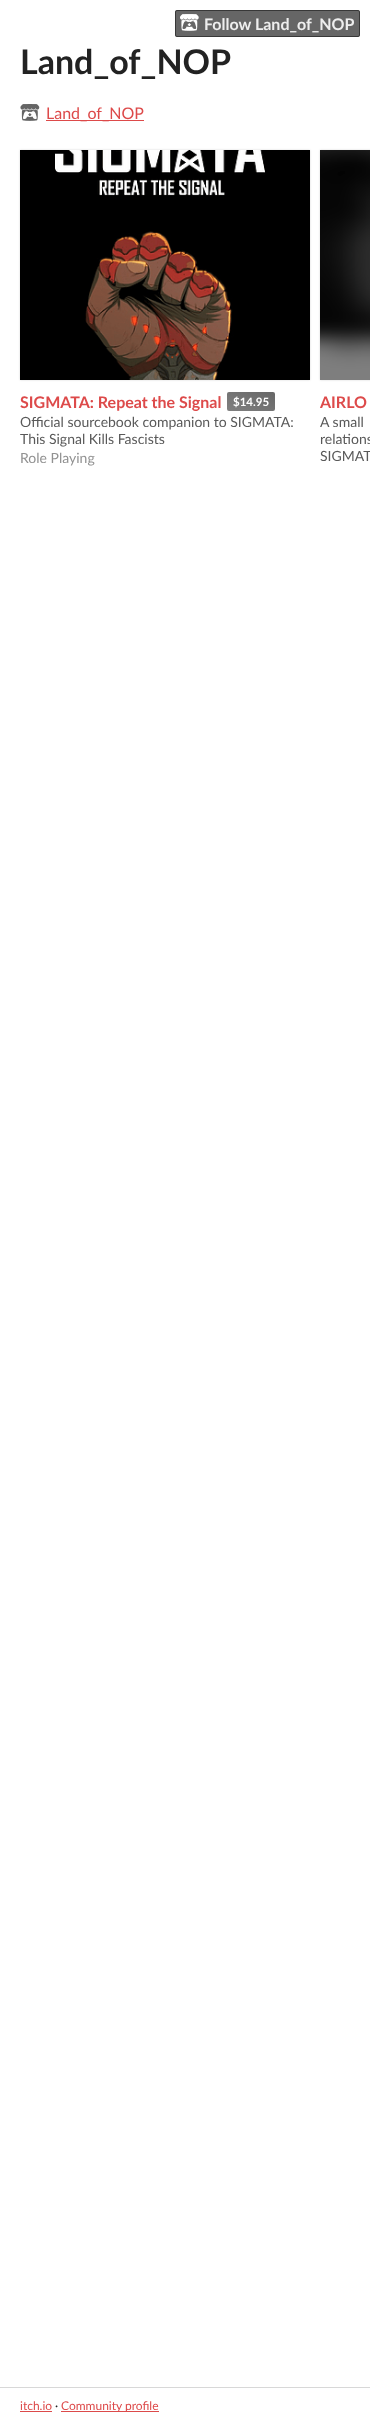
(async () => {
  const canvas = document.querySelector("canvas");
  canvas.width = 370;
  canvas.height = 2423;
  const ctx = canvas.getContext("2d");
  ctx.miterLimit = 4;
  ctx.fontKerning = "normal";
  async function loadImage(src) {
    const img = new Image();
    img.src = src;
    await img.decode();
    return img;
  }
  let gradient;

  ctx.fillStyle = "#ffffff";
  ctx.fillRect(0, 0, 370, 2423);
  ctx.fillStyle = "#666666";
  ctx.beginPath();
  ctx.roundRect(175, 10, 185, 27, 2);
  ctx.fill();
  ctx.beginPath();
  ctx.roundRect(175.5, 10.5, 184, 26, 1.5);
  ctx.strokeStyle = "rgba(10, 10, 10, 0.5)";
  ctx.stroke();
  ctx.drawImage(await loadImage("img/1.png"), 180, 14, 19, 17);
  ctx.drawImage(await loadImage("img/2.png"), 20, 104, 20, 17);
  ctx.fillStyle = "#dd4a4a";
  ctx.fillRect(46, 120, 98, 1);
  ctx.fillStyle = "rgba(0, 0, 0, 0.15)";
  ctx.filter = "blur(1px)";
  ctx.beginPath();
  ctx.rect(20, 150, 290, 230);
  ctx.fill();
  ctx.filter = "none";
  ctx.drawImage(await loadImage("img/3.png"), 20, 150, 290, 230);
  gradient = ctx.createLinearGradient(244, 418, 258, 385);
  gradient.addColorStop(0, "#808080");
  gradient.addColorStop(1, "#676767");
  ctx.fillStyle = gradient;
  ctx.beginPath();
  ctx.roundRect(227, 392, 48, 19, 2);
  ctx.fill();
  ctx.fillStyle = "rgba(0, 0, 0, 0.15)";
  ctx.filter = "blur(1px)";
  ctx.beginPath();
  ctx.rect(320, 150, 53, 230);
  ctx.fill();
  ctx.filter = "none";
  ctx.drawImage(await loadImage("img/4.png"), 320, 150, 50, 230);
  for (const [x, y, w, h, color] of [
    [0, 2387, 370, 1, "#d8d8d8"],
    [20, 2411, 32, 1, "#dd4a4a"],
    [61, 2411, 98, 1, "#dd4a4a"],
  ]) {
    ctx.fillStyle = color;
    ctx.fillRect(x, y, w, h);
  }
  ctx.font = "bold 16px Lato";
  ctx.fillStyle = "#eeeeee";
  ctx.fillText("Follow Land_of_NOP", 204, 30);
  ctx.font = "bold 34px Lato";
  ctx.fillStyle = "#222222";
  ctx.fillText("Land_of_NOP", 20, 74);
  ctx.font = "16px Lato";
  ctx.fillStyle = "#dd4a4a";
  ctx.fillText("Land_of_NOP", 46, 119);
  ctx.font = "bold 16px Lato";
  ctx.fillText("SIGMATA: Repeat the Signal", 20, 408);
  ctx.font = "bold 11.5px Lato";
  ctx.fillStyle = "#ffffff";
  ctx.fillText("$14.95", 233, 406);
  ctx.font = "14px Lato";
  ctx.fillStyle = "#595959";
  ctx.fillText("Official sourcebook companion to SIGMATA:", 20, 427);
  ctx.fillText("This Signal Kills Fascists", 20, 444);
  ctx.fillStyle = "#919191";
  ctx.fillText("Role Playing", 20, 463);
  ctx.font = "bold 16px Lato";
  ctx.fillStyle = "#dd4a4a";
  ctx.fillText("AIRLO", 320, 408);
  ctx.font = "14px Lato";
  ctx.fillStyle = "#595959";
  for (const [text, x, y] of [
    ["A small", 320, 427],
    ["relations", 320, 444],
    ["SIGMAT", 320, 461],
  ]) {
    ctx.fillText(text, x, y);
  }
  ctx.font = "12px Lato";
  ctx.fillStyle = "#dd4a4a";
  ctx.fillText("itch.io", 20, 2410);
  ctx.fillStyle = "#222222";
  ctx.fillText("·", 55, 2410);
  ctx.fillStyle = "#dd4a4a";
  ctx.fillText("Community profile", 61, 2410);
})();
